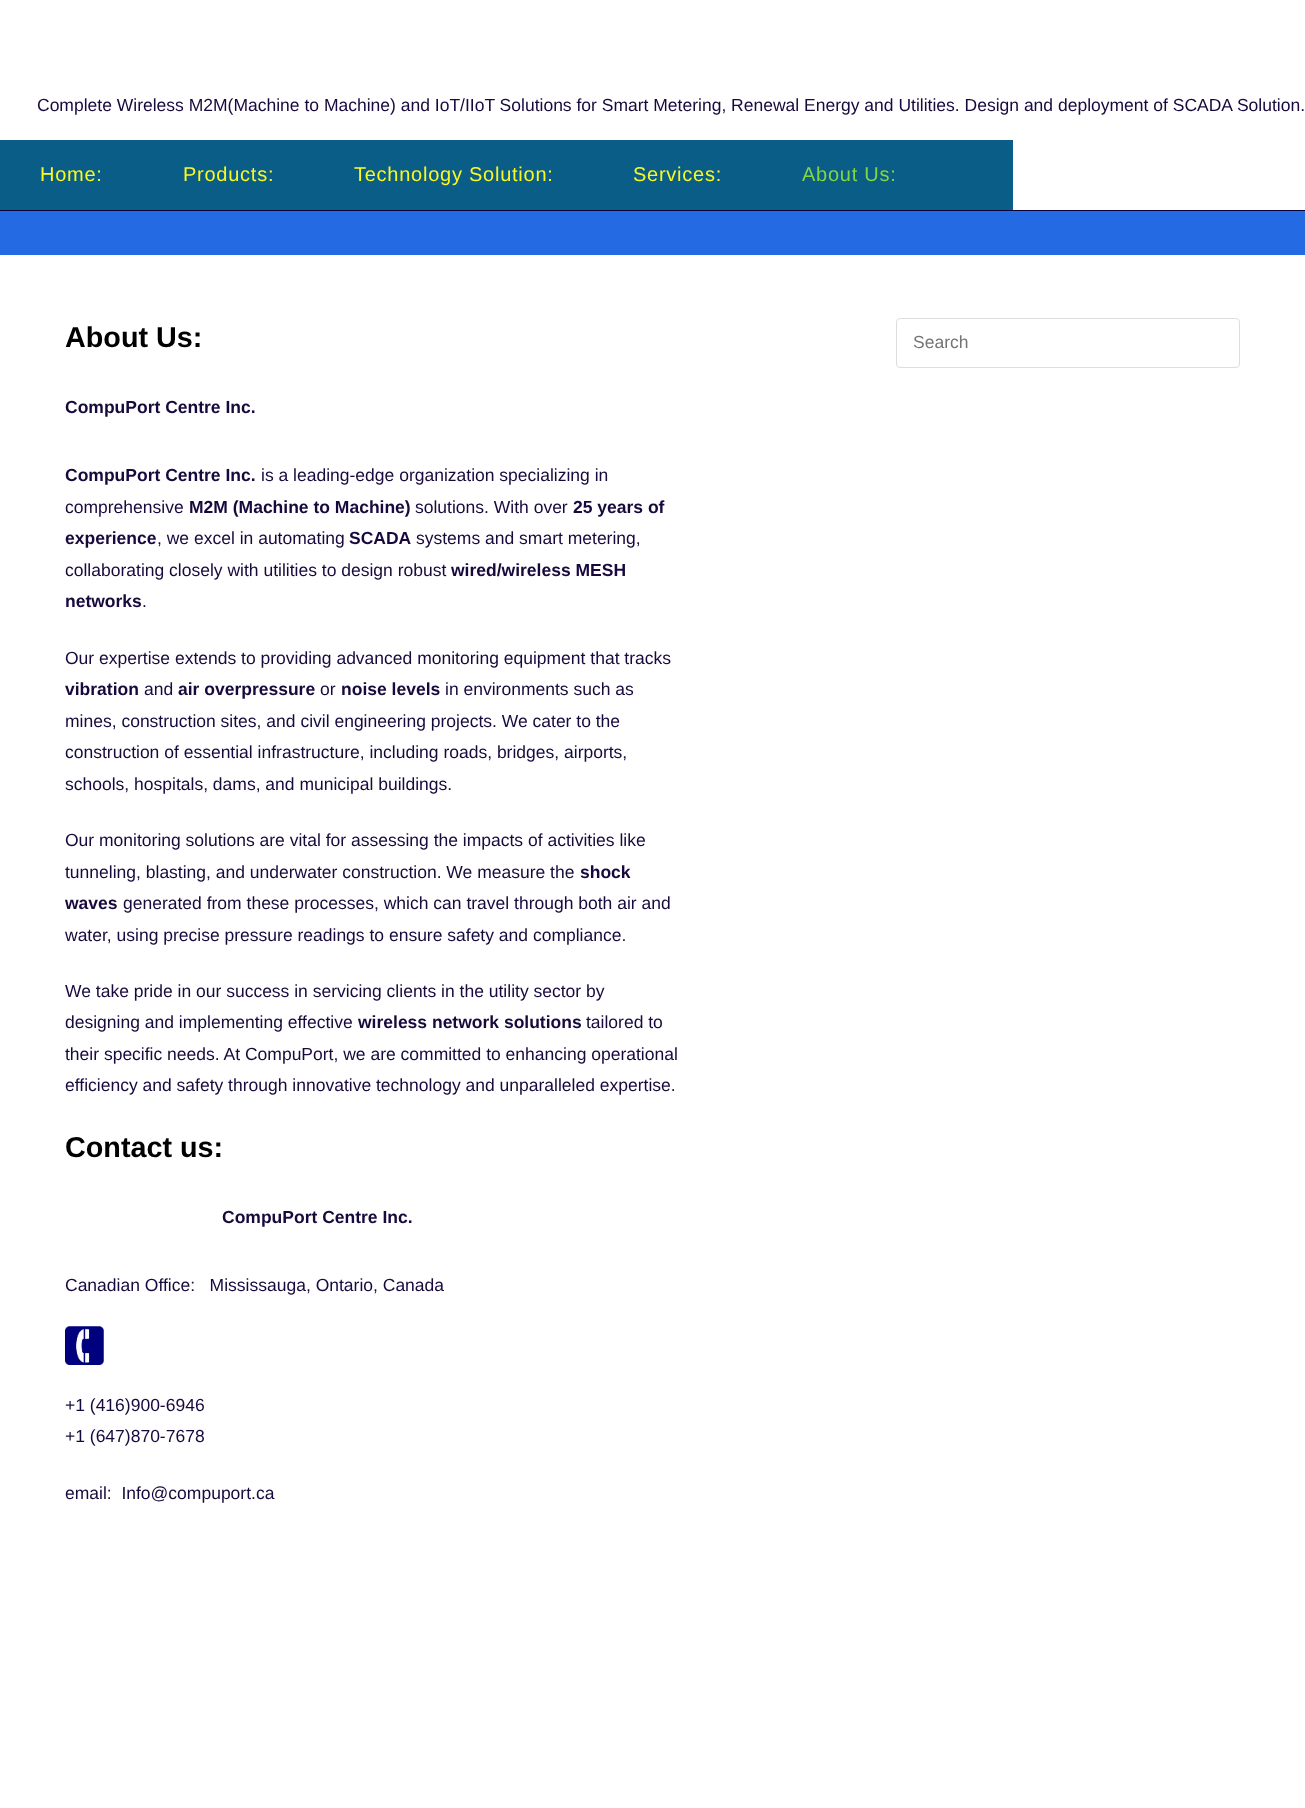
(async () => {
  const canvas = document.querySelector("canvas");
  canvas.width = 1305;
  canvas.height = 1808;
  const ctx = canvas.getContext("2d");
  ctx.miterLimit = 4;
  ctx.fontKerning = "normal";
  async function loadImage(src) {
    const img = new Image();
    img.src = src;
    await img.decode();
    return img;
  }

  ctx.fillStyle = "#ffffff";
  ctx.fillRect(0, 0, 1305, 1808);
  for (const [x, y, w, h, color] of [
    [0, 210, 1305, 1, "#09013a"],
    [0, 140, 1013, 70, "#0a5d87"],
    [0, 211, 1305, 44, "#246ae2"],
  ]) {
    ctx.fillStyle = color;
    ctx.fillRect(x, y, w, h);
  }
  ctx.drawImage(await loadImage("img/1.png"), 65, 1326, 39, 39);
  ctx.beginPath();
  ctx.roundRect(896.5, 318.5, 343, 49, 3.5);
  ctx.strokeStyle = "#dddddd";
  ctx.stroke();
  ctx.font = "17.5px Liberation Sans";
  ctx.fillStyle = "#18093d";
  ctx.fillText("Complete Wireless M2M(Machine to Machine) and IoT/IIoT Solutions for Smart Metering, Renewal Energy and Utilities. Design and deployment of SCADA Solution.", 37, 111);
  ctx.letterSpacing = "0.75px";
  ctx.font = "20px Liberation Sans";
  ctx.fillStyle = "#f9f922";
  for (const [text, x, y] of [
    ["Home:", 40, 181],
    ["Products:", 183, 181],
    ["Technology Solution:", 354, 181],
    ["Services:", 633, 181],
  ]) {
    ctx.fillText(text, x, y);
  }
  ctx.fillStyle = "#81d742";
  ctx.fillText("About Us:", 802, 181);
  ctx.letterSpacing = "0px";
  ctx.font = "bold 28.75px Liberation Sans";
  ctx.fillStyle = "#000000";
  ctx.fillText("About Us:", 65, 347);
  ctx.font = "bold 17.5px Liberation Sans";
  ctx.fillStyle = "#18093d";
  ctx.fillText("CompuPort Centre Inc.", 65, 413);
  ctx.fillText("CompuPort Centre Inc.", 65, 481);
  ctx.font = "17.5px Liberation Sans";
  ctx.fillText("is a leading-edge organization specializing in", 261, 481);
  ctx.fillText("comprehensive", 65, 513);
  ctx.font = "bold 17.5px Liberation Sans";
  ctx.fillText("M2M (Machine to Machine)", 189, 513);
  ctx.font = "17.5px Liberation Sans";
  ctx.fillText("solutions. With over", 415, 513);
  ctx.font = "bold 17.5px Liberation Sans";
  ctx.fillText("25 years of", 573, 513);
  ctx.fillText("experience", 65, 544);
  ctx.font = "17.5px Liberation Sans";
  ctx.fillText(", we excel in automating", 157, 544);
  ctx.font = "bold 17.5px Liberation Sans";
  ctx.fillText("SCADA", 349, 544);
  ctx.font = "17.5px Liberation Sans";
  ctx.fillText("systems and smart metering,", 416, 544);
  ctx.fillText("collaborating closely with utilities to design robust", 65, 576);
  ctx.font = "bold 17.5px Liberation Sans";
  ctx.fillText("wired/wireless MESH", 451, 576);
  ctx.fillText("networks", 65, 607);
  ctx.font = "17.5px Liberation Sans";
  ctx.fillText(".", 142, 607);
  ctx.fillText("Our expertise extends to providing advanced monitoring equipment that tracks", 65, 664);
  ctx.font = "bold 17.5px Liberation Sans";
  ctx.fillText("vibration", 65, 695);
  ctx.font = "17.5px Liberation Sans";
  ctx.fillText("and", 144, 695);
  ctx.font = "bold 17.5px Liberation Sans";
  ctx.fillText("air overpressure", 178, 695);
  ctx.font = "17.5px Liberation Sans";
  ctx.fillText("or", 320, 695);
  ctx.font = "bold 17.5px Liberation Sans";
  ctx.fillText("noise levels", 341, 695);
  ctx.font = "17.5px Liberation Sans";
  for (const [text, x, y] of [
    ["in environments such as", 445, 695],
    ["mines, construction sites, and civil engineering projects. We cater to the", 65, 727],
    ["construction of essential infrastructure, including roads, bridges, airports,", 65, 758],
    ["schools, hospitals, dams, and municipal buildings.", 65, 790],
    ["Our monitoring solutions are vital for assessing the impacts of activities like", 65, 846],
    ["tunneling, blasting, and underwater construction. We measure the", 65, 878],
  ]) {
    ctx.fillText(text, x, y);
  }
  ctx.font = "bold 17.5px Liberation Sans";
  ctx.fillText("shock", 580, 878);
  ctx.fillText("waves", 65, 909);
  ctx.font = "17.5px Liberation Sans";
  for (const [text, x, y] of [
    ["generated from these processes, which can travel through both air and", 123, 909],
    ["water, using precise pressure readings to ensure safety and compliance.", 65, 941],
    ["We take pride in our success in servicing clients in the utility sector by", 65, 997],
    ["designing and implementing effective", 65, 1028],
  ]) {
    ctx.fillText(text, x, y);
  }
  ctx.font = "bold 17.5px Liberation Sans";
  ctx.fillText("wireless network solutions", 358, 1028);
  ctx.font = "17.5px Liberation Sans";
  for (const [text, x, y] of [
    ["tailored to", 586, 1028],
    ["their specific needs. At CompuPort, we are committed to enhancing operational", 65, 1060],
    ["efficiency and safety through innovative technology and unparalleled expertise.", 65, 1091],
  ]) {
    ctx.fillText(text, x, y);
  }
  ctx.font = "bold 28.75px Liberation Sans";
  ctx.fillStyle = "#000000";
  ctx.fillText("Contact us:", 65, 1157);
  ctx.font = "bold 17.5px Liberation Sans";
  ctx.fillStyle = "#18093d";
  ctx.fillText("CompuPort Centre Inc.", 222, 1223);
  ctx.font = "17.5px Liberation Sans";
  for (const [text, x, y] of [
    ["Canadian Office:   Mississauga, Ontario, Canada", 65, 1291],
    ["+1 (416)900-6946", 65, 1411],
    ["+1 (647)870-7678", 65, 1442],
    ["email:  Info@compuport.ca", 65, 1499],
  ]) {
    ctx.fillText(text, x, y);
  }
  ctx.fillStyle = "#757575";
  ctx.fillText("Search", 913, 348);
})();
